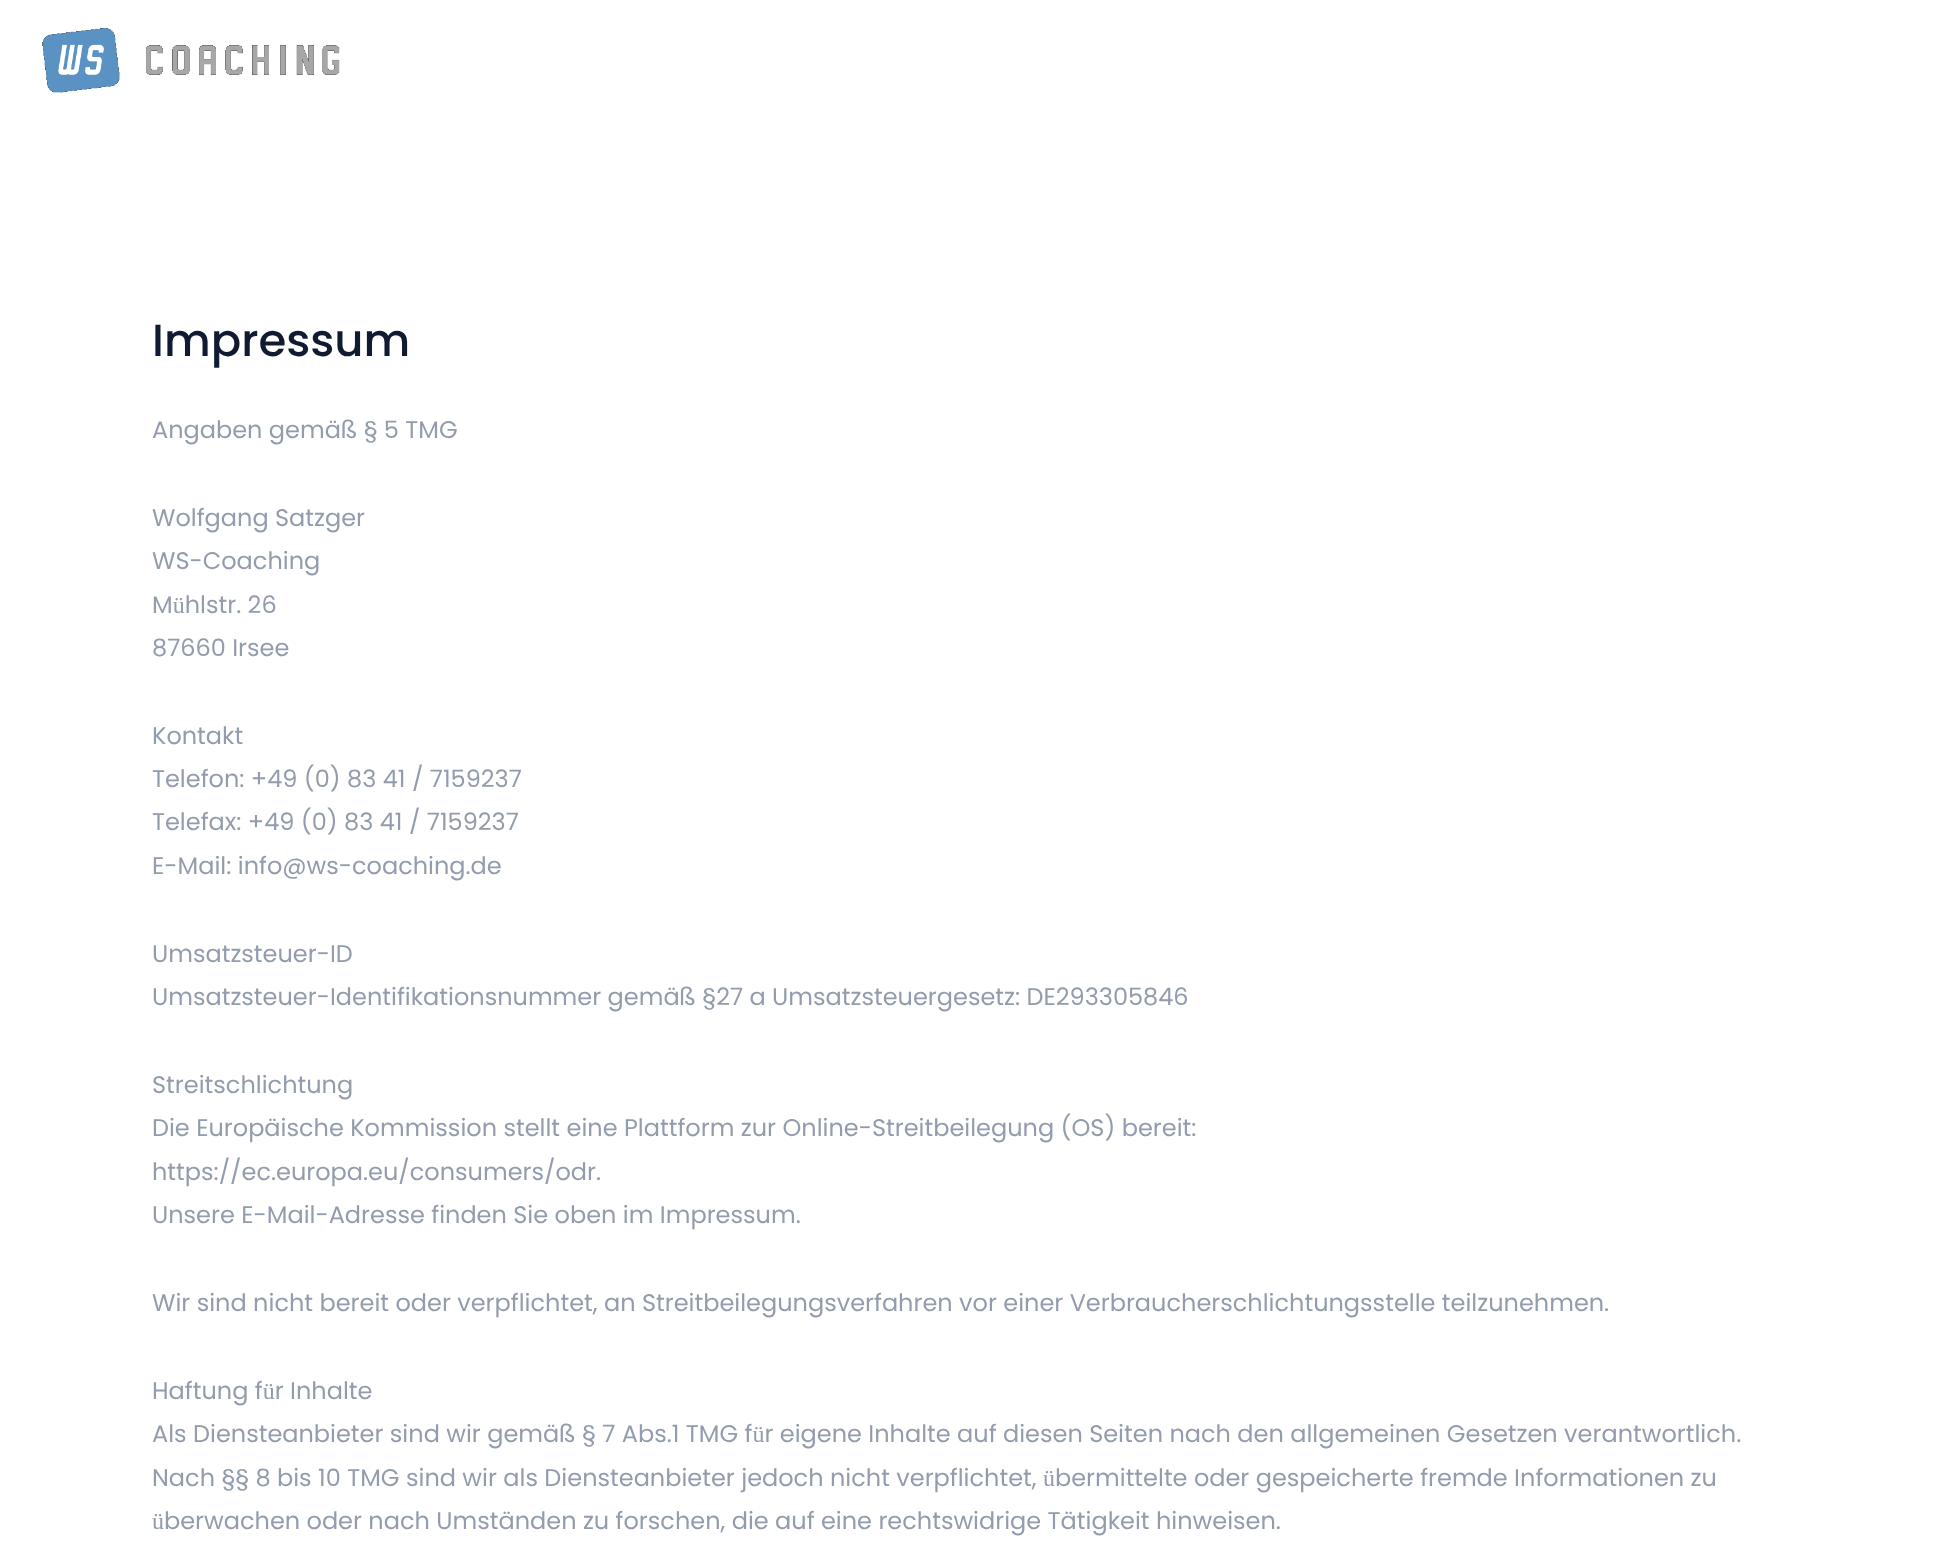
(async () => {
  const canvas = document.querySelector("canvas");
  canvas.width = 1953;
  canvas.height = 1566;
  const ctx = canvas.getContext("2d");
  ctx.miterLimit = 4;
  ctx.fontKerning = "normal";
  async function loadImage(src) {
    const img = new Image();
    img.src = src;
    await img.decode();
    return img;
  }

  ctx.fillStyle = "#ffffff";
  ctx.fillRect(0, 0, 1953, 1566);
  ctx.drawImage(await loadImage("img/1.png"), 42, 28, 298, 65);
  ctx.font = "500 45px Poppins";
  ctx.fillStyle = "#101b31";
  ctx.fillText("Impressum", 152, 356);
  ctx.font = "24px Poppins";
  ctx.fillStyle = "#939cad";
  for (const [text, x, y] of [
    ["Angaben gemäß § 5 TMG", 152, 438],
    ["Wolfgang Satzger", 152, 526],
    ["WS-Coaching", 152, 569],
    ["Mühlstr. 26", 152, 613],
    ["87660 Irsee", 152, 656],
    ["Kontakt", 152, 744],
    ["Telefon: +49 (0) 83 41 / 7159237", 152, 787],
    ["Telefax: +49 (0) 83 41 / 7159237", 152, 830],
    ["E-Mail: info@ws-coaching.de", 152, 874],
    ["Umsatzsteuer-ID", 152, 962],
    ["Umsatzsteuer-Identifikationsnummer gemäß §27 a Umsatzsteuergesetz: DE293305846", 152, 1005],
    ["Streitschlichtung", 152, 1093],
    ["Die Europäische Kommission stellt eine Plattform zur Online-Streitbeilegung (OS) bereit:", 152, 1136],
    ["https://ec.europa.eu/consumers/odr.", 152, 1180],
    ["Unsere E-Mail-Adresse finden Sie oben im Impressum.", 152, 1223],
    ["Wir sind nicht bereit oder verpflichtet, an Streitbeilegungsverfahren vor einer Verbraucherschlichtungsstelle teilzunehmen.", 152, 1311],
    ["Haftung für Inhalte", 152, 1399],
    ["Als Diensteanbieter sind wir gemäß § 7 Abs.1 TMG für eigene Inhalte auf diesen Seiten nach den allgemeinen Gesetzen verantwortlich.", 152, 1442],
    ["Nach §§ 8 bis 10 TMG sind wir als Diensteanbieter jedoch nicht verpflichtet, übermittelte oder gespeicherte fremde Informationen zu", 152, 1486],
    ["überwachen oder nach Umständen zu forschen, die auf eine rechtswidrige Tätigkeit hinweisen.", 152, 1529],
  ]) {
    ctx.fillText(text, x, y);
  }
})();
